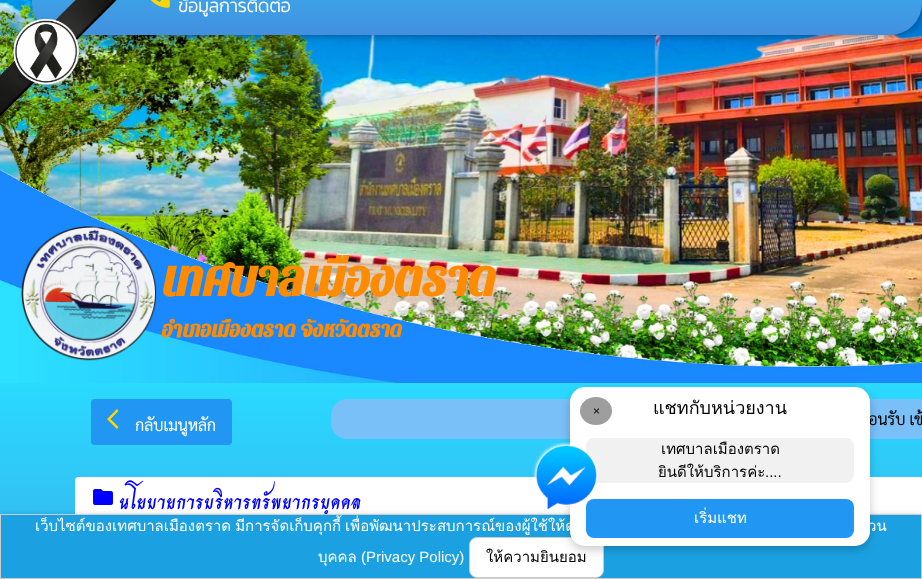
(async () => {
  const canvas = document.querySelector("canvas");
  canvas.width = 922;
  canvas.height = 579;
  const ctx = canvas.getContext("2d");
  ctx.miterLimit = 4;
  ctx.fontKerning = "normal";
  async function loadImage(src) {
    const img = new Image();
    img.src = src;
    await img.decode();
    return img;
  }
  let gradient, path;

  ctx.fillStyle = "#ffffff";
  ctx.fillRect(0, 0, 922, 579);
  ctx.drawImage(await loadImage("img/3.png"), 0, 0, 922, 367);
  ctx.fillStyle = "rgba(0, 0, 0, 0.12)";
  ctx.filter = "blur(5px)";
  ctx.beginPath();
  ctx.roundRect(32, -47, 890, 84, 32);
  ctx.fill();
  ctx.filter = "none";
  ctx.fillStyle = "rgba(0, 0, 0, 0.16)";
  ctx.filter = "blur(2.5px)";
  ctx.beginPath();
  ctx.roundRect(32, -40, 890, 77, 32);
  ctx.fill();
  ctx.filter = "none";
  gradient = ctx.createLinearGradient(477, -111, 477, 35);
  gradient.addColorStop(0, "#2adaff");
  gradient.addColorStop(1, "#438fdf");
  ctx.fillStyle = gradient;
  ctx.beginPath();
  ctx.roundRect(32, -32, 890, 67, 32);
  ctx.fill();
  ctx.drawImage(await loadImage("img/1.png"), 0, 0, 117, 117);
  ctx.drawImage(await loadImage("img/2.png"), 150, 0, 20, 8);
  ctx.drawImage(await loadImage("img/4.png"), 0, 169, 922, 214);
  ctx.drawImage(await loadImage("img/5.png"), 21, 226, 136, 135);
  gradient = ctx.createLinearGradient(700, 383, 700, 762);
  gradient.addColorStop(0, "#2adaff");
  gradient.addColorStop(1, "#438fdf");
  ctx.fillStyle = gradient;
  ctx.fillRect(0, 383, 922, 131);
  ctx.fillStyle = "#2196f3";
  ctx.beginPath();
  ctx.roundRect(91, 399, 141, 46, 4);
  ctx.fill();
  ctx.fillStyle = "#ffd700";
  path = new Path2D("M118.5 411L110.5 419L118.5 427L117 429L107 419L117 409Z");
  ctx.fill(path);
  ctx.fillStyle = "#79bff8";
  ctx.beginPath();
  ctx.roundRect(331, 399, 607, 40, 16);
  ctx.fill();
  ctx.fillStyle = "#ffffff";
  ctx.beginPath();
  ctx.roundRect(75, 477, 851, 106, 4);
  ctx.fill();
  ctx.drawImage(await loadImage("img/6.png"), 93, 489, 20, 16);
  ctx.fillStyle = "rgba(0, 0, 0, 0.12)";
  ctx.filter = "blur(5px)";
  ctx.beginPath();
  ctx.rect(0, 516, 922, 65);
  ctx.fill();
  ctx.filter = "none";
  ctx.fillStyle = "rgba(0, 0, 0, 0.16)";
  ctx.filter = "blur(2.5px)";
  ctx.beginPath();
  ctx.rect(0, 516, 922, 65);
  ctx.fill();
  ctx.filter = "none";
  ctx.font = "bold 18px Kanit";
  ctx.fillStyle = "#ffffff";
  ctx.fillText("ข้อมูลการติดต่อ", 178, 12);
  ctx.font = "bold 50px Pattaya";
  ctx.fillStyle = "#ff8c00";
  ctx.fillText("เทศบาลเมืองตราด", 162, 296);
  ctx.font = "bold 22px Pattaya";
  ctx.fillText("อำเภอเมืองตราด จังหวัดตราด", 162, 337);
  ctx.font = "bold 16px Sarabun";
  ctx.fillStyle = "#ffffff";
  ctx.fillText("กลับเมนูหลัก", 135, 431);
  ctx.fillStyle = "#000000";
  ctx.fillText("อนรับ เข้", 868, 425);
  ctx.font = "bold 20px Charm";
  ctx.fillStyle = "#0000ff";
  ctx.fillText("นโยบายการบริหารทรัพยากรบุคคล", 119, 509);
  ctx.fillStyle = "#1ba1e2";
  ctx.beginPath();
  ctx.rect(0.5, 514.5, 921, 64);
  ctx.fill();
  ctx.strokeStyle = "#cccccc";
  ctx.stroke();
  ctx.wordSpacing = "-1px";
  ctx.font = "15px Loma";
  ctx.fillStyle = "#ffffff";
  ctx.fillText("เว็บไซต์ของเทศบาลเมืองตราด มีการจัดเก็บคุกกี้ เพื่อพัฒนาประสบการณ์ของผู้ใช้ให้ด", 35, 531);
  ctx.fillText("วน", 868, 531);
  ctx.wordSpacing = "0px";
  ctx.fillText("บุคคล", 318, 562);
  ctx.font = "15px Liberation Sans";
  ctx.fillText("(Privacy Policy)", 361, 562);
  ctx.beginPath();
  ctx.roundRect(469.5, 537.5, 134, 40, 7.5);
  ctx.fill();
  ctx.stroke();
  ctx.fillStyle = "rgba(0, 0, 0, 0.2)";
  ctx.filter = "blur(5px)";
  ctx.beginPath();
  ctx.roundRect(570, 391, 300, 159, 15);
  ctx.fill();
  ctx.filter = "none";
  ctx.fillStyle = "#ffffff";
  ctx.beginPath();
  ctx.roundRect(570, 387, 300, 159, 15);
  ctx.fill();
  ctx.fillStyle = "#2196f3";
  ctx.beginPath();
  ctx.roundRect(586, 499, 268, 39, 8);
  ctx.fill();
  ctx.fillStyle = "#f1f1f1";
  ctx.beginPath();
  ctx.roundRect(586, 438, 268, 45, 8);
  ctx.fill();
  ctx.drawImage(await loadImage("img/7.png"), 532, 441, 66, 69);
  ctx.fillStyle = "#9e9e9e";
  ctx.beginPath();
  ctx.ellipse(596, 411, 16, 14, 0, 0, Math.PI * 2);
  ctx.fill();
  ctx.font = "12px Liberation Sans";
  ctx.fillStyle = "#000000";
  ctx.fillText("×", 593, 415);
  ctx.font = "15px Loma";
  ctx.fillStyle = "#ffffff";
  ctx.fillText("เริ่มแชท", 694, 523);
  ctx.font = "15px Liberation Sans";
  ctx.fillStyle = "#000000";
  ctx.fillText("....", 765, 477);
  ctx.font = "15px Loma";
  ctx.fillText("ยินดีให้บริการค่ะ", 658, 477);
  ctx.fillText("เทศบาลเมืองตราด", 661, 454);
  ctx.font = "18px Loma";
  ctx.fillText("แชทกับหน่วยงาน", 653, 414);
  ctx.font = "15px Loma";
  ctx.fillText("ให้ความยินยอม", 486, 562);
})();
